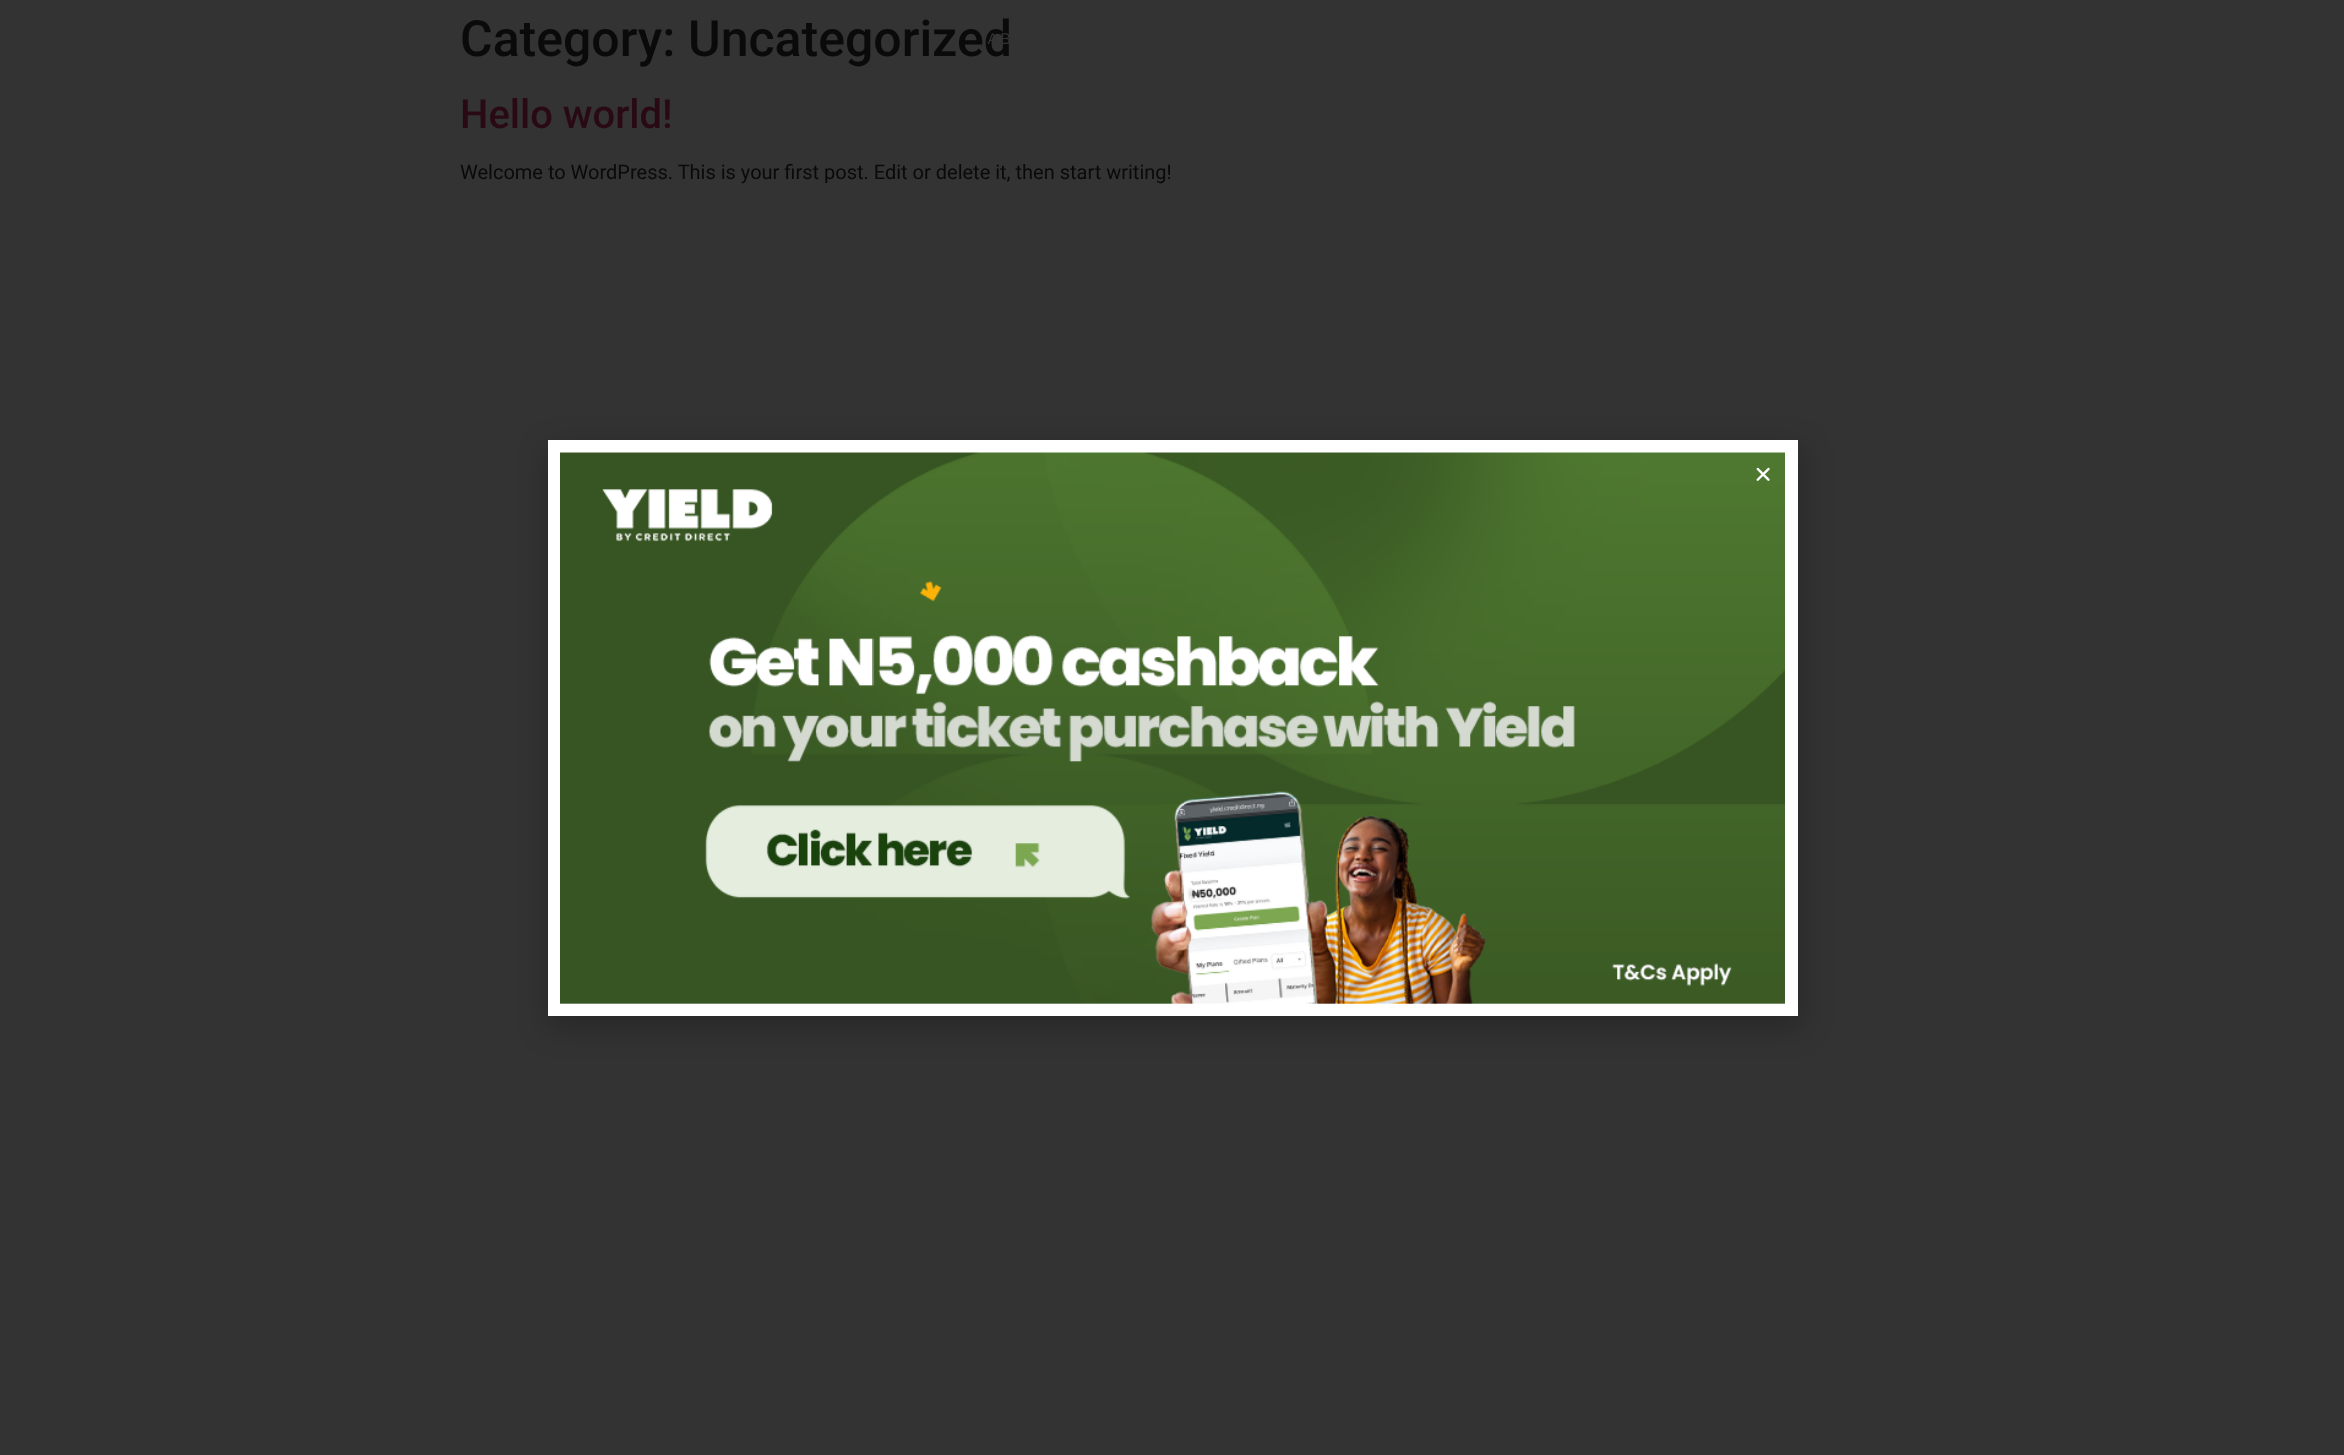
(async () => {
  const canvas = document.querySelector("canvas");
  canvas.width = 2344;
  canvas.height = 1455;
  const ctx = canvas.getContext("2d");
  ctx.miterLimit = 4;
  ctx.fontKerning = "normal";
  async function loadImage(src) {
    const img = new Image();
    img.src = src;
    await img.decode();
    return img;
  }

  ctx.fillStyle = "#333333";
  ctx.fillRect(0, 0, 2344, 1455);
  ctx.fillStyle = "rgba(0, 0, 0, 0.2)";
  ctx.filter = "blur(14.5px)";
  ctx.beginPath();
  ctx.rect(546, 446, 1258, 584);
  ctx.fill();
  ctx.filter = "none";
  ctx.fillStyle = "#ffffff";
  ctx.fillRect(548, 440, 1250, 576);
  ctx.drawImage(await loadImage("img/1.png"), 560, 452, 1225, 552);
  ctx.drawImage(await loadImage("img/2.png"), 1756, 467, 14, 14);
  ctx.font = "500 50px Roboto";
  ctx.fillStyle = "#0a0a0a";
  ctx.fillText("Category: Uncategorized", 460, 56);
  ctx.font = "500 40px Roboto";
  ctx.fillStyle = "#290a14";
  ctx.fillText("Hello world!", 460, 128);
  ctx.font = "20px Roboto";
  ctx.fillStyle = "#0a0a0a";
  ctx.fillText("Welcome to WordPress. This is your first post. Edit or delete it, then start writing!", 460, 179);
  ctx.letterSpacing = "2px";
  ctx.font = "200 15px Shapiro";
  ctx.fillStyle = "#333333";
  ctx.fillText("AB", 987, 44);
})();
